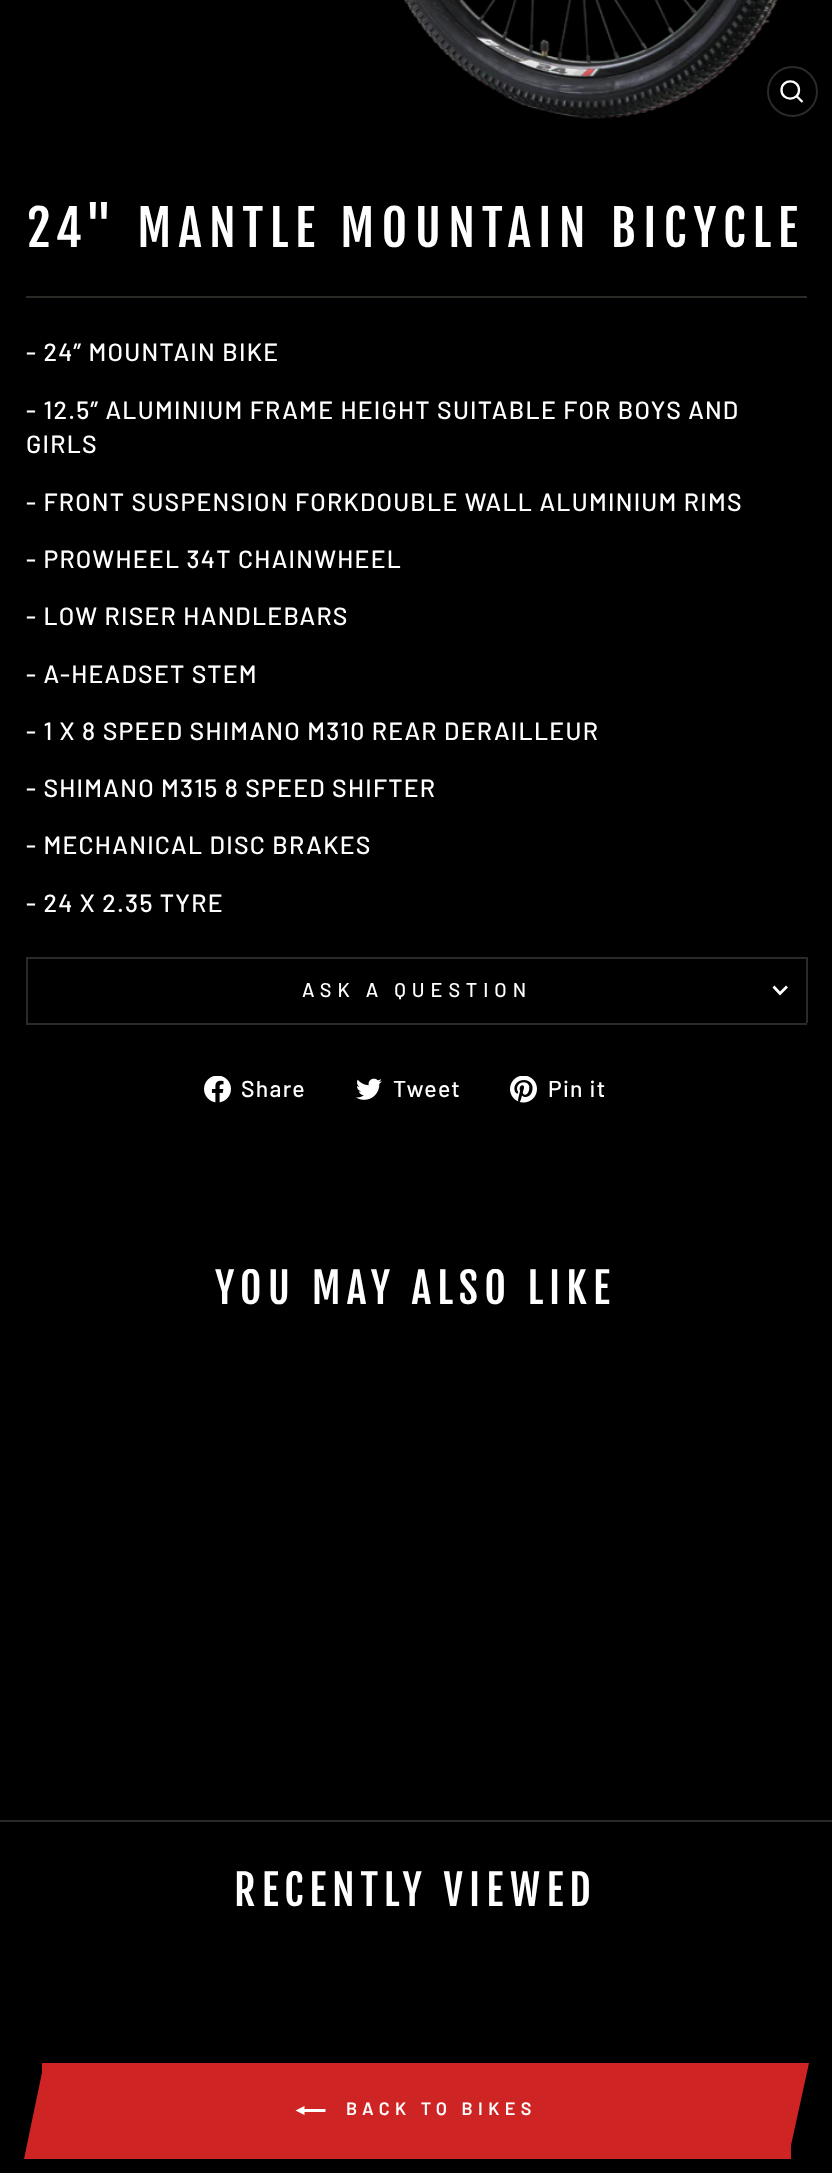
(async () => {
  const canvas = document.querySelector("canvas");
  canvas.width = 832;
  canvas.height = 2173;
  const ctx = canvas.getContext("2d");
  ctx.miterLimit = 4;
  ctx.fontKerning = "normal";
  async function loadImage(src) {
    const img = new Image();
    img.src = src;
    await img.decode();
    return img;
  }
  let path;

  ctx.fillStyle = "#000000";
  ctx.fillRect(0, 0, 832, 2173);
  ctx.drawImage(await loadImage("img/1.png"), 403, 0, 375, 119);
  ctx.beginPath();
  ctx.arc(792.5, 91.5, 24.5, 0, Math.PI * 2);
  ctx.strokeStyle = "#2b2a27";
  ctx.lineWidth = 2;
  ctx.stroke();
  path = new Path2D("M799 90C799 101.5 781.5 101.5 781.5 90C781.5 78.5 799 78.5 799 90ZM802.5 102L796.5 96");
  ctx.strokeStyle = "#ffffff";
  ctx.lineWidth = 2.3;
  ctx.stroke(path);
  for (const [x, y, w, h, color] of [
    [26, 296, 781, 2, "#2b2a27"],
    [26, 1023, 781, 2, "#2b2a27"],
    [26, 957, 781, 2, "#2b2a27"],
    [806, 957, 2, 66, "#2b2a27"],
    [26, 957, 2, 66, "#2b2a27"],
  ]) {
    ctx.fillStyle = color;
    ctx.fillRect(x, y, w, h);
  }
  path = new Path2D("M773.5 986.5L780 993.5L787 986.5");
  ctx.lineWidth = 2.7;
  ctx.stroke(path);
  ctx.drawImage(await loadImage("img/2.png"), 204, 1076, 27, 27);
  ctx.drawImage(await loadImage("img/3.png"), 356, 1078, 26, 22);
  ctx.drawImage(await loadImage("img/4.png"), 510, 1076, 27, 27);
  ctx.fillRect(0, 1820, 832, 2);
  ctx.fillStyle = "#cf2424";
  ctx.fillRect(42, 2063, 749, 96);
  path = new Path2D("M44 2063H74L54 2159H24Z");
  ctx.fill(path);
  ctx.fillStyle = "#ffffff";
  path = new Path2D("M325.5 2109V2112H304.5V2115L295.5 2110.5L304.5 2106V2109Z");
  ctx.fill(path);
  ctx.fillStyle = "#cf2424";
  path = new Path2D("M779 2063H809L788 2159H758Z");
  ctx.fill(path);
  ctx.letterSpacing = "7.4px";
  ctx.font = "49.25px Fjalla One";
  ctx.fillStyle = "#ffffff";
  ctx.fillText("24\" MANTLE MOUNTAIN BICYCLE", 27, 247);
  ctx.letterSpacing = "1.25px";
  ctx.font = "500 24.85px Barlow";
  for (const [text, x, y] of [
    ["- 24” MOUNTAIN BIKE", 26, 361],
    ["- 12.5” ALUMINIUM FRAME HEIGHT SUITABLE FOR BOYS AND", 26, 419],
    ["GIRLS", 26, 453],
    ["- FRONT SUSPENSION FORKDOUBLE WALL ALUMINIUM RIMS", 26, 511],
    ["- PROWHEEL 34T CHAINWHEEL", 26, 568],
    ["- LOW RISER HANDLEBARS", 26, 625],
    ["- A-HEADSET STEM", 26, 683],
    ["- 1 X 8 SPEED SHIMANO M310 REAR DERAILLEUR", 26, 740],
    ["- SHIMANO M315 8 SPEED SHIFTER", 26, 797],
    ["- MECHANICAL DISC BRAKES", 26, 854],
    ["- 24 X 2.35 TYRE", 26, 912],
  ]) {
    ctx.fillText(text, x, y);
  }
  ctx.letterSpacing = "6px";
  ctx.font = "500 19.9px Barlow";
  ctx.fillText("ASK A QUESTION", 302, 997);
  ctx.letterSpacing = "1.25px";
  ctx.font = "500 23px Barlow";
  for (const [text, x, y] of [
    ["Share", 241, 1097],
    ["Tweet", 393, 1097],
    ["Pin it", 548, 1097],
  ]) {
    ctx.fillText(text, x, y);
  }
  ctx.letterSpacing = "6.25px";
  ctx.font = "41.75px Fjalla One";
  ctx.fillText("YOU MAY ALSO LIKE", 215, 1304);
  ctx.fillText("RECENTLY VIEWED", 234, 1906);
  ctx.letterSpacing = "5.4px";
  ctx.font = "600 18px Barlow";
  ctx.fillText("BACK TO BIKES", 346, 2115);
})();
